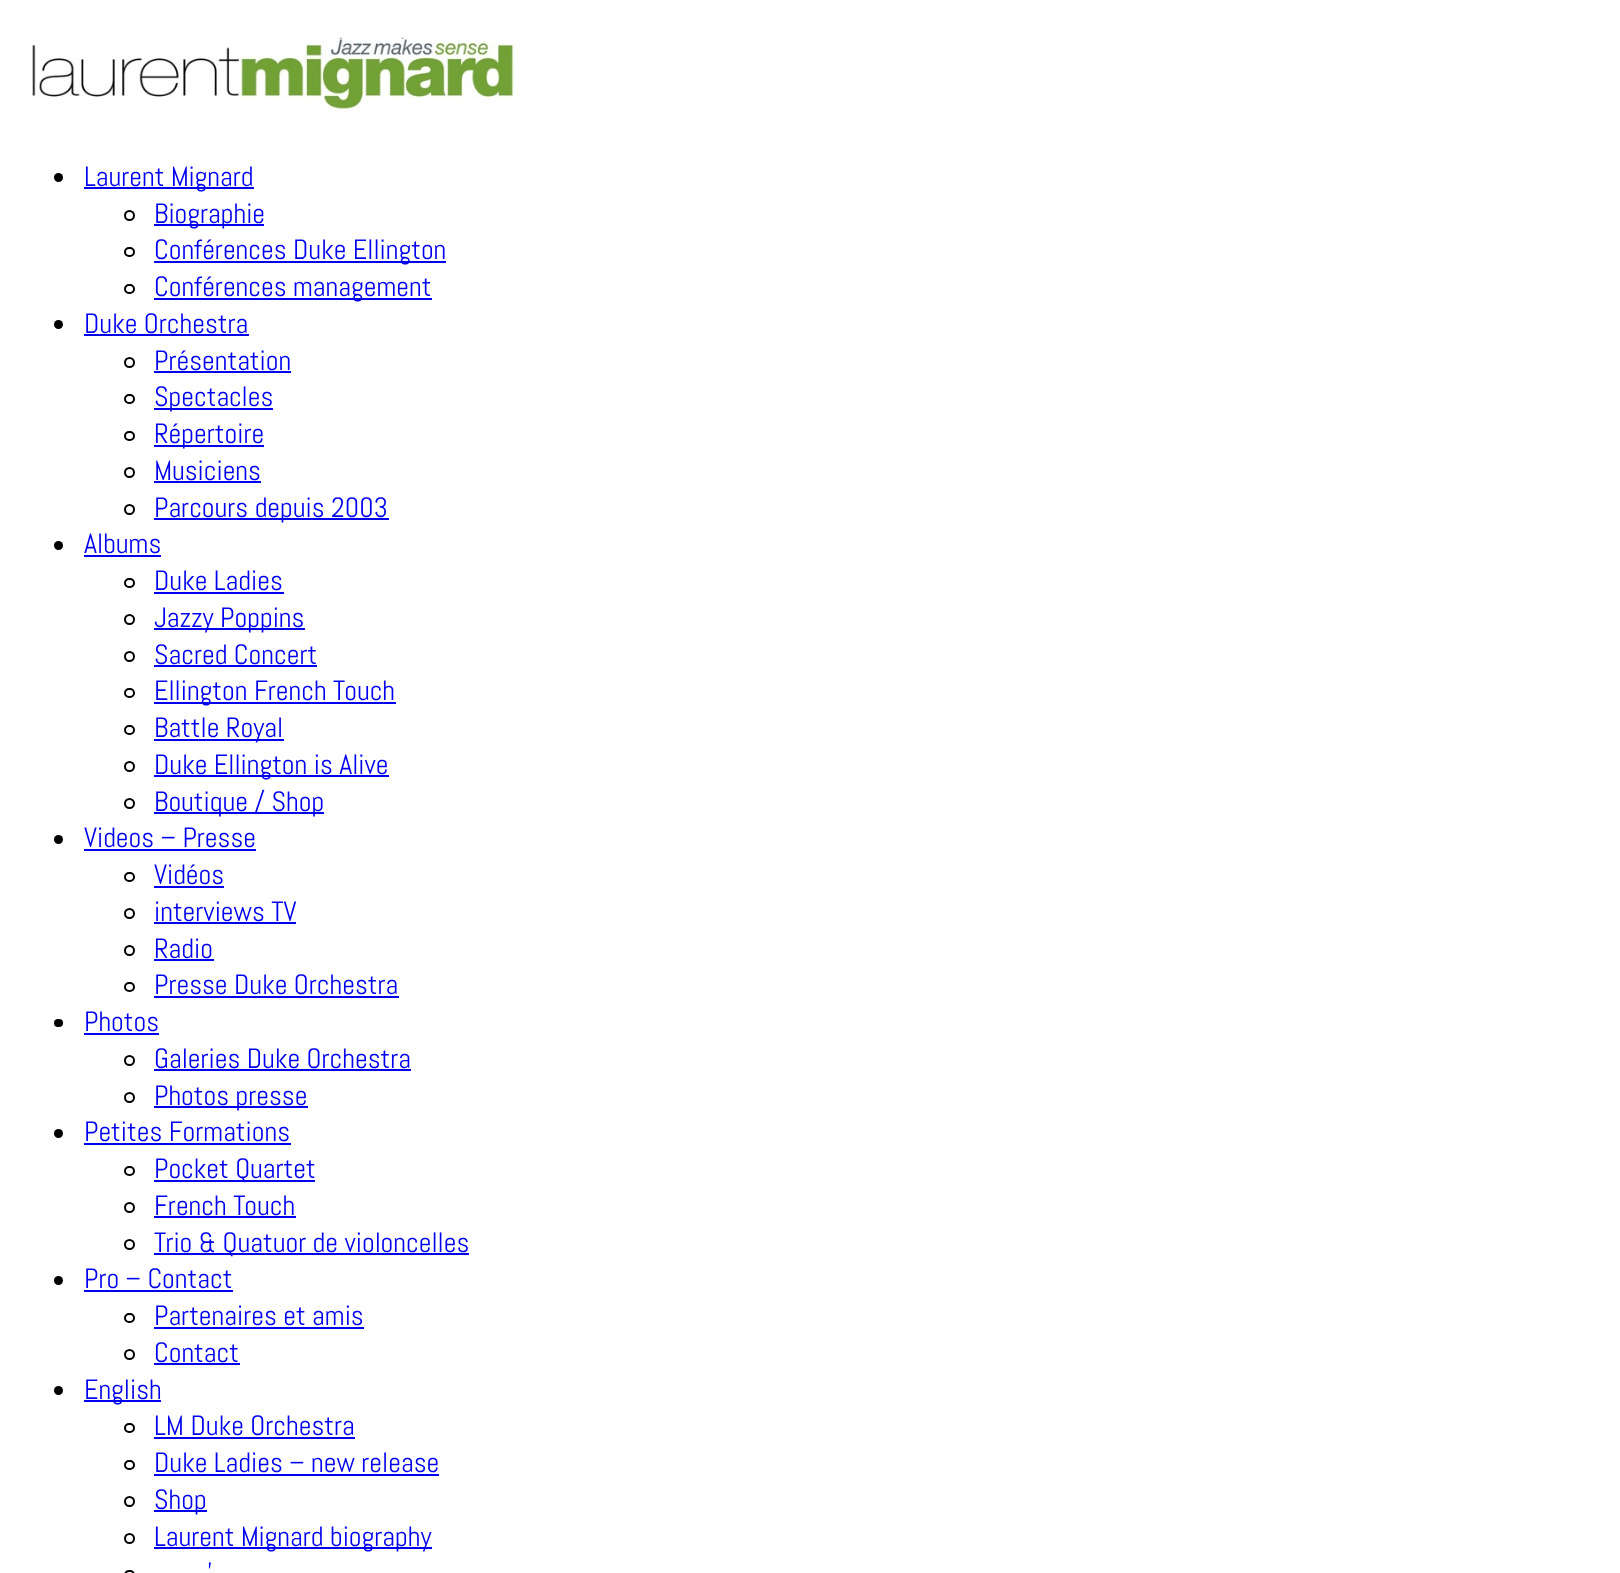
(async () => {
  const canvas = document.querySelector("canvas");
  canvas.width = 1620;
  canvas.height = 1573;
  const ctx = canvas.getContext("2d");
  ctx.miterLimit = 4;
  ctx.fontKerning = "normal";
  async function loadImage(src) {
    const img = new Image();
    img.src = src;
    await img.decode();
    return img;
  }

  ctx.fillStyle = "#ffffff";
  ctx.fillRect(0, 0, 1620, 1573);
  ctx.drawImage(await loadImage("img/1.png"), 31, 35, 491, 78);
  ctx.fillStyle = "#000000";
  ctx.beginPath();
  ctx.arc(58.5, 177.5, 4.5, 0, Math.PI * 2);
  ctx.fill();
  ctx.fillStyle = "#0000ee";
  ctx.fillRect(84, 187, 170, 2);
  ctx.beginPath();
  ctx.arc(129.5, 215.5, 4.5, 0, Math.PI * 2);
  ctx.strokeStyle = "#000000";
  ctx.lineWidth = 2;
  ctx.stroke();
  ctx.fillRect(154, 224, 110, 2);
  ctx.beginPath();
  ctx.roundRect(125, 248, 9, 8, 4);
  ctx.stroke();
  ctx.fillRect(154, 261, 292, 2);
  ctx.beginPath();
  ctx.roundRect(125, 285, 9, 8, 4);
  ctx.stroke();
  ctx.fillRect(154, 298, 278, 2);
  ctx.fillStyle = "#000000";
  ctx.beginPath();
  ctx.arc(58.5, 324.5, 4.5, 0, Math.PI * 2);
  ctx.fill();
  ctx.fillStyle = "#0000ee";
  ctx.fillRect(84, 334, 165, 2);
  ctx.beginPath();
  ctx.arc(129.5, 362.5, 4.5, 0, Math.PI * 2);
  ctx.stroke();
  ctx.fillRect(154, 371, 137, 2);
  ctx.beginPath();
  ctx.roundRect(125, 395, 9, 8, 4);
  ctx.stroke();
  ctx.fillRect(154, 408, 119, 2);
  ctx.beginPath();
  ctx.roundRect(125, 432, 9, 8, 4);
  ctx.stroke();
  ctx.fillRect(154, 445, 110, 2);
  ctx.beginPath();
  ctx.arc(129.5, 472.5, 4.5, 0, Math.PI * 2);
  ctx.stroke();
  ctx.fillRect(154, 481, 107, 2);
  ctx.beginPath();
  ctx.arc(129.5, 509.5, 4.5, 0, Math.PI * 2);
  ctx.stroke();
  ctx.fillRect(154, 518, 235, 2);
  ctx.fillStyle = "#000000";
  ctx.beginPath();
  ctx.arc(58.5, 545.5, 4.5, 0, Math.PI * 2);
  ctx.fill();
  ctx.fillStyle = "#0000ee";
  ctx.fillRect(84, 555, 77, 2);
  ctx.beginPath();
  ctx.roundRect(125, 579, 9, 8, 4);
  ctx.stroke();
  ctx.fillRect(154, 592, 130, 2);
  ctx.beginPath();
  ctx.arc(129.5, 619.5, 4.5, 0, Math.PI * 2);
  ctx.stroke();
  ctx.fillRect(154, 628, 151, 2);
  ctx.beginPath();
  ctx.arc(129.5, 656.5, 4.5, 0, Math.PI * 2);
  ctx.stroke();
  ctx.fillRect(154, 665, 163, 2);
  ctx.beginPath();
  ctx.roundRect(125, 689, 9, 8, 4);
  ctx.stroke();
  ctx.fillRect(154, 702, 242, 2);
  ctx.beginPath();
  ctx.roundRect(125, 726, 9, 8, 4);
  ctx.stroke();
  ctx.fillRect(154, 739, 130, 2);
  ctx.beginPath();
  ctx.arc(129.5, 766.5, 4.5, 0, Math.PI * 2);
  ctx.stroke();
  ctx.fillRect(154, 775, 235, 2);
  ctx.beginPath();
  ctx.arc(129.5, 803.5, 4.5, 0, Math.PI * 2);
  ctx.stroke();
  ctx.fillRect(154, 812, 170, 2);
  ctx.fillStyle = "#000000";
  ctx.beginPath();
  ctx.arc(58.5, 839.5, 4.5, 0, Math.PI * 2);
  ctx.fill();
  ctx.fillStyle = "#0000ee";
  ctx.fillRect(84, 849, 172, 2);
  ctx.beginPath();
  ctx.roundRect(125, 873, 9, 8, 4);
  ctx.stroke();
  ctx.fillRect(154, 886, 70, 2);
  ctx.beginPath();
  ctx.arc(129.5, 913.5, 4.5, 0, Math.PI * 2);
  ctx.stroke();
  ctx.fillRect(154, 922, 142, 2);
  ctx.beginPath();
  ctx.arc(129.5, 950.5, 4.5, 0, Math.PI * 2);
  ctx.stroke();
  ctx.fillRect(154, 959, 60, 2);
  ctx.beginPath();
  ctx.roundRect(125, 983, 9, 8, 4);
  ctx.stroke();
  ctx.fillRect(154, 996, 245, 2);
  ctx.fillStyle = "#000000";
  ctx.beginPath();
  ctx.roundRect(54, 1019, 9, 8, 4);
  ctx.fill();
  ctx.fillStyle = "#0000ee";
  ctx.fillRect(84, 1033, 75, 2);
  ctx.beginPath();
  ctx.arc(129.5, 1060.5, 4.5, 0, Math.PI * 2);
  ctx.stroke();
  ctx.fillRect(154, 1069, 257, 2);
  ctx.beginPath();
  ctx.arc(129.5, 1097.5, 4.5, 0, Math.PI * 2);
  ctx.stroke();
  ctx.fillRect(154, 1106, 154, 2);
  ctx.fillStyle = "#000000";
  ctx.beginPath();
  ctx.arc(58.5, 1133.5, 4.5, 0, Math.PI * 2);
  ctx.fill();
  ctx.fillStyle = "#0000ee";
  ctx.fillRect(84, 1143, 207, 2);
  ctx.beginPath();
  ctx.roundRect(125, 1167, 9, 8, 4);
  ctx.stroke();
  ctx.fillRect(154, 1180, 161, 2);
  ctx.beginPath();
  ctx.arc(129.5, 1207.5, 4.5, 0, Math.PI * 2);
  ctx.stroke();
  ctx.fillRect(154, 1216, 142, 2);
  ctx.beginPath();
  ctx.arc(129.5, 1244.5, 4.5, 0, Math.PI * 2);
  ctx.stroke();
  ctx.fillRect(154, 1253, 315, 2);
  ctx.fillStyle = "#000000";
  ctx.beginPath();
  ctx.arc(58.5, 1280.5, 4.5, 0, Math.PI * 2);
  ctx.fill();
  ctx.fillStyle = "#0000ee";
  ctx.fillRect(84, 1290, 149, 2);
  ctx.beginPath();
  ctx.roundRect(125, 1314, 9, 8, 4);
  ctx.stroke();
  ctx.fillRect(154, 1327, 210, 2);
  ctx.beginPath();
  ctx.arc(129.5, 1354.5, 4.5, 0, Math.PI * 2);
  ctx.stroke();
  ctx.fillRect(154, 1363, 86, 2);
  ctx.fillStyle = "#000000";
  ctx.beginPath();
  ctx.arc(58.5, 1390.5, 4.5, 0, Math.PI * 2);
  ctx.fill();
  ctx.fillStyle = "#0000ee";
  ctx.fillRect(84, 1400, 77, 2);
  ctx.beginPath();
  ctx.roundRect(125, 1424, 9, 8, 4);
  ctx.stroke();
  ctx.fillRect(154, 1437, 201, 2);
  ctx.beginPath();
  ctx.roundRect(125, 1461, 9, 8, 4);
  ctx.stroke();
  ctx.fillRect(154, 1474, 285, 2);
  ctx.beginPath();
  ctx.arc(129.5, 1501.5, 4.5, 0, Math.PI * 2);
  ctx.stroke();
  ctx.fillRect(154, 1510, 53, 2);
  ctx.beginPath();
  ctx.arc(129.5, 1538.5, 4.5, 0, Math.PI * 2);
  ctx.stroke();
  ctx.fillRect(154, 1547, 278, 2);
  ctx.beginPath();
  ctx.roundRect(125, 1571, 9, 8, 4);
  ctx.stroke();
  ctx.font = "28px Abel";
  for (const [text, x, y] of [
    ["Laurent Mignard", 84, 186],
    ["Biographie", 154, 223],
    ["Conférences Duke Ellington", 154, 259],
    ["Conférences management", 154, 296],
    ["Duke Orchestra", 84, 333],
    ["Présentation", 154, 370],
    ["Spectacles", 154, 406],
    ["Répertoire", 154, 443],
    ["Musiciens", 154, 480],
    ["Parcours depuis 2003", 154, 517],
    ["Albums", 84, 553],
    ["Duke Ladies", 154, 590],
    ["Jazzy Poppins", 154, 627],
    ["Sacred Concert", 154, 664],
    ["Ellington French Touch", 154, 700],
    ["Battle Royal", 154, 737],
    ["Duke Ellington is Alive", 154, 774],
    ["Boutique / Shop", 154, 811],
    ["Videos – Presse", 84, 847],
    ["Vidéos", 154, 884],
    ["interviews TV", 154, 921],
    ["Radio", 154, 958],
    ["Presse Duke Orchestra", 154, 994],
    ["Photos", 84, 1031],
    ["Galeries Duke Orchestra", 154, 1068],
    ["Photos presse", 154, 1105],
    ["Petites Formations", 84, 1141],
    ["Pocket Quartet", 154, 1178],
    ["French Touch", 154, 1215],
    ["Trio & Quatuor de violoncelles", 154, 1252],
    ["Pro – Contact", 84, 1288],
    ["Partenaires et amis", 154, 1325],
    ["Contact", 154, 1362],
    ["English", 84, 1399],
    ["LM Duke Orchestra", 154, 1435],
    ["Duke Ladies – new release", 154, 1472],
    ["Shop", 154, 1509],
    ["Laurent Mignard biography", 154, 1546],
    ["’", 207, 1582],
  ]) {
    ctx.fillText(text, x, y);
  }
})();
